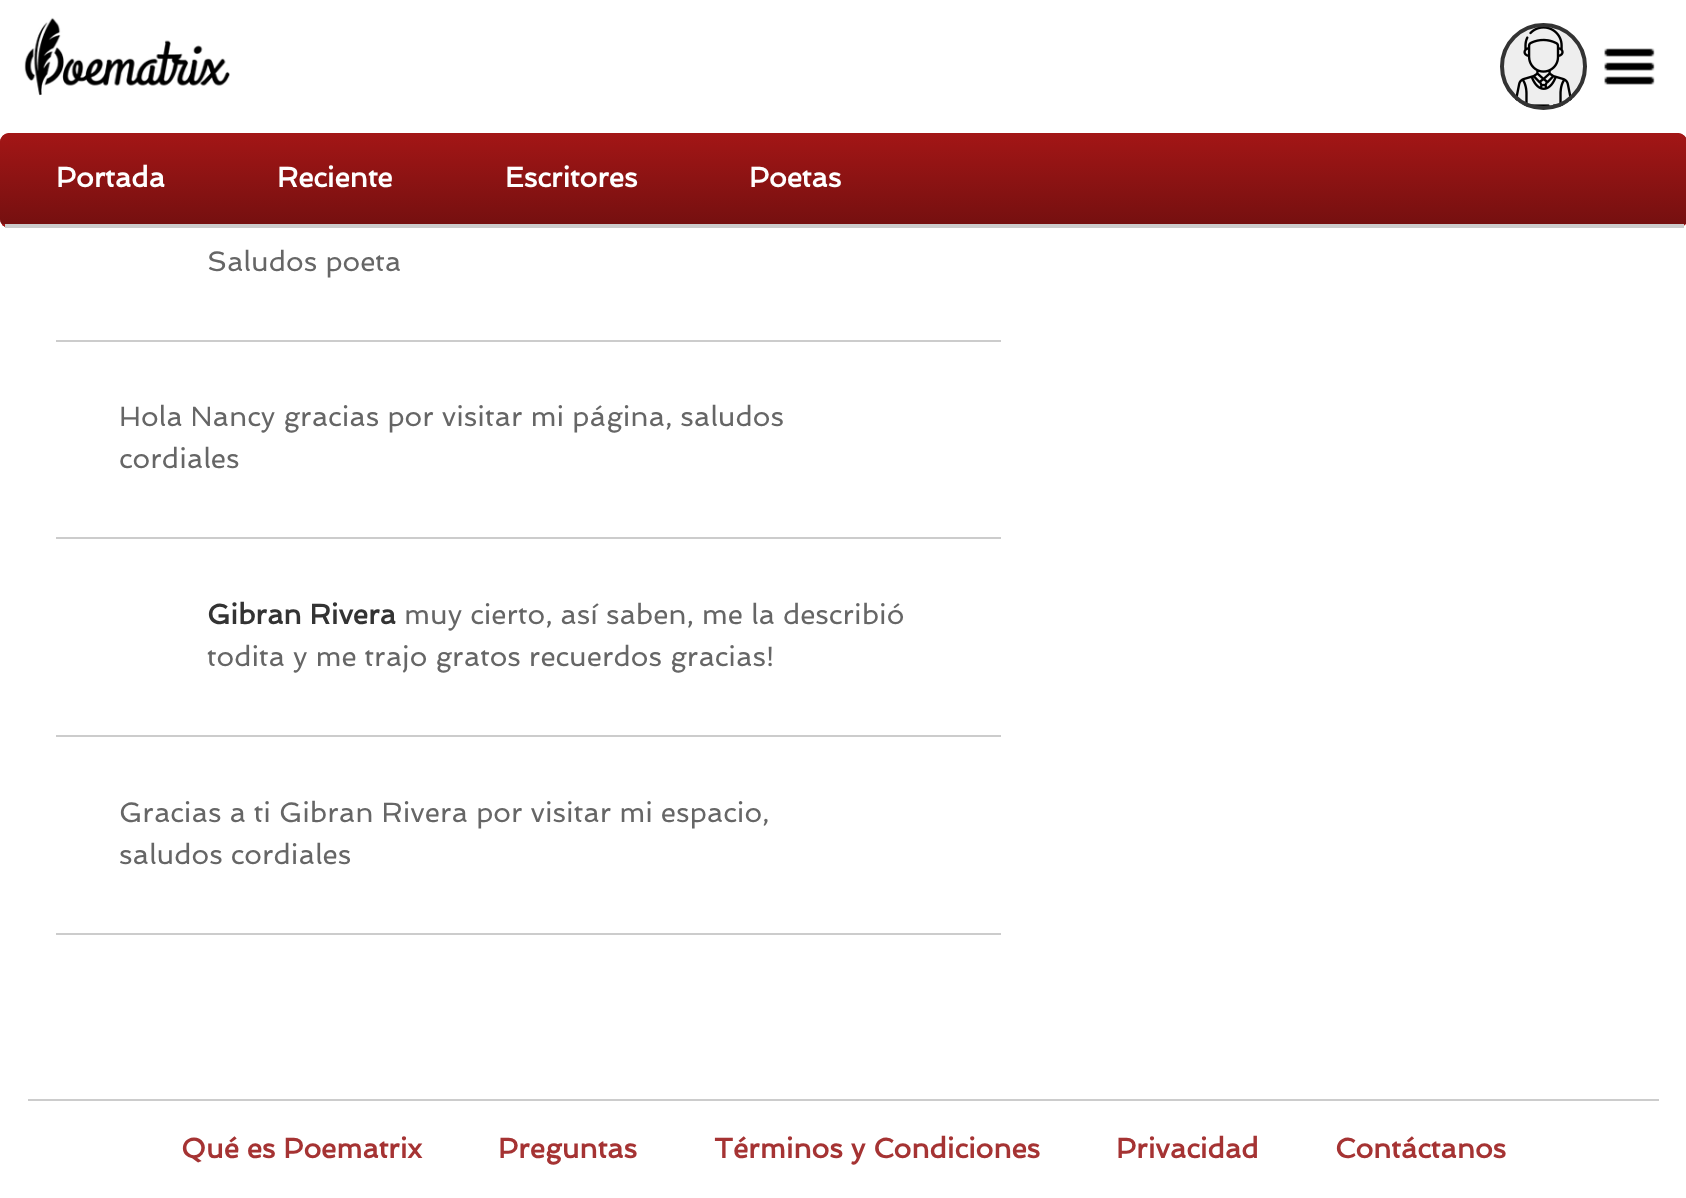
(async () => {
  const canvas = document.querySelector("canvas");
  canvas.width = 1686;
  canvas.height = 1198;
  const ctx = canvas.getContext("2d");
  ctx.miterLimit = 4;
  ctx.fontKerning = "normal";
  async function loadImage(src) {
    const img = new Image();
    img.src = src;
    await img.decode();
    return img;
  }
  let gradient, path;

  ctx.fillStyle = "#ffffff";
  ctx.fillRect(0, 0, 1686, 1198);
  ctx.drawImage(await loadImage("img/1.png"), 24, 17, 206, 79);
  ctx.drawImage(await loadImage("img/2.png"), 1604, 48, 51, 37);
  ctx.fillStyle = "#eeeeee";
  ctx.beginPath();
  ctx.arc(1543.5, 66.5, 43.5, 0, Math.PI * 2);
  ctx.fill();
  ctx.drawImage(await loadImage("img/3.png"), 1515, 27, 57, 80);
  ctx.beginPath();
  ctx.arc(1543.5, 66.5, 41.5, 0, Math.PI * 2);
  ctx.strokeStyle = "#333333";
  ctx.lineWidth = 4;
  ctx.stroke();
  ctx.fillStyle = "#a31616";
  ctx.beginPath();
  ctx.roundRect(0, 133, 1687, 95, 9);
  ctx.fill();
  ctx.save();
  ctx.beginPath();
  ctx.roundRect(0, 133, 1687, 95, 9);
  ctx.clip();
  gradient = ctx.createLinearGradient(844, 133, 844, 224);
  gradient.addColorStop(0, "#a31616");
  gradient.addColorStop(1, "#761010");
  ctx.fillStyle = gradient;
  path = new Path2D("M9 133H1678C1683 133 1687 137 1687 142V224H0V142C0 137 4 133 9 133Z");
  ctx.fill(path);
  gradient = ctx.createLinearGradient(844, 224, 844, 315);
  gradient.addColorStop(0, "#a31616");
  gradient.addColorStop(1, "#761010");
  ctx.fillStyle = gradient;
  ctx.fillRect(0, 224, 1686, 3);
  ctx.restore();
  for (const [x, y, w, h, color] of [
    [5, 224, 1679, 4, "#cccccc"],
    [56, 340, 945, 2, "#cccccc"],
    [56, 537, 945, 2, "#cccccc"],
    [56, 735, 945, 2, "#cccccc"],
    [56, 933, 945, 2, "#cccccc"],
    [28, 1099, 1631, 2, "#cccccc"],
  ]) {
    ctx.fillStyle = color;
    ctx.fillRect(x, y, w, h);
  }
  ctx.font = "bold 28px Spinnaker";
  ctx.fillStyle = "#ffffff";
  for (const [text, x, y] of [
    ["Portada", 56, 187],
    ["Reciente", 277, 187],
    ["Escritores", 505, 187],
    ["Poetas", 749, 187],
  ]) {
    ctx.fillText(text, x, y);
  }
  ctx.font = "28px Spinnaker";
  ctx.fillStyle = "#666666";
  for (const [text, x, y] of [
    ["Saludos poeta", 207, 271],
    ["Hola Nancy gracias por visitar mi página, saludos", 119, 426],
    ["cordiales", 119, 468],
  ]) {
    ctx.fillText(text, x, y);
  }
  ctx.font = "bold 28px Spinnaker";
  ctx.fillStyle = "#333333";
  ctx.fillText("Gibran Rivera", 207, 624);
  ctx.font = "28px Spinnaker";
  ctx.fillStyle = "#666666";
  for (const [text, x, y] of [
    ["muy cierto, así saben, me la describió", 404, 624],
    ["todita y me trajo gratos recuerdos gracias!", 207, 666],
    ["Gracias a ti Gibran Rivera por visitar mi espacio,", 119, 822],
    ["saludos cordiales", 119, 864],
  ]) {
    ctx.fillText(text, x, y);
  }
  ctx.font = "bold 28px Spinnaker";
  ctx.fillStyle = "#a53333";
  for (const [text, x, y] of [
    ["Qué es Poematrix", 181, 1158],
    ["Preguntas", 498, 1158],
    ["Términos y Condiciones", 714, 1158],
    ["Privacidad", 1116, 1158],
    ["Contáctanos", 1335, 1158],
  ]) {
    ctx.fillText(text, x, y);
  }
})();
